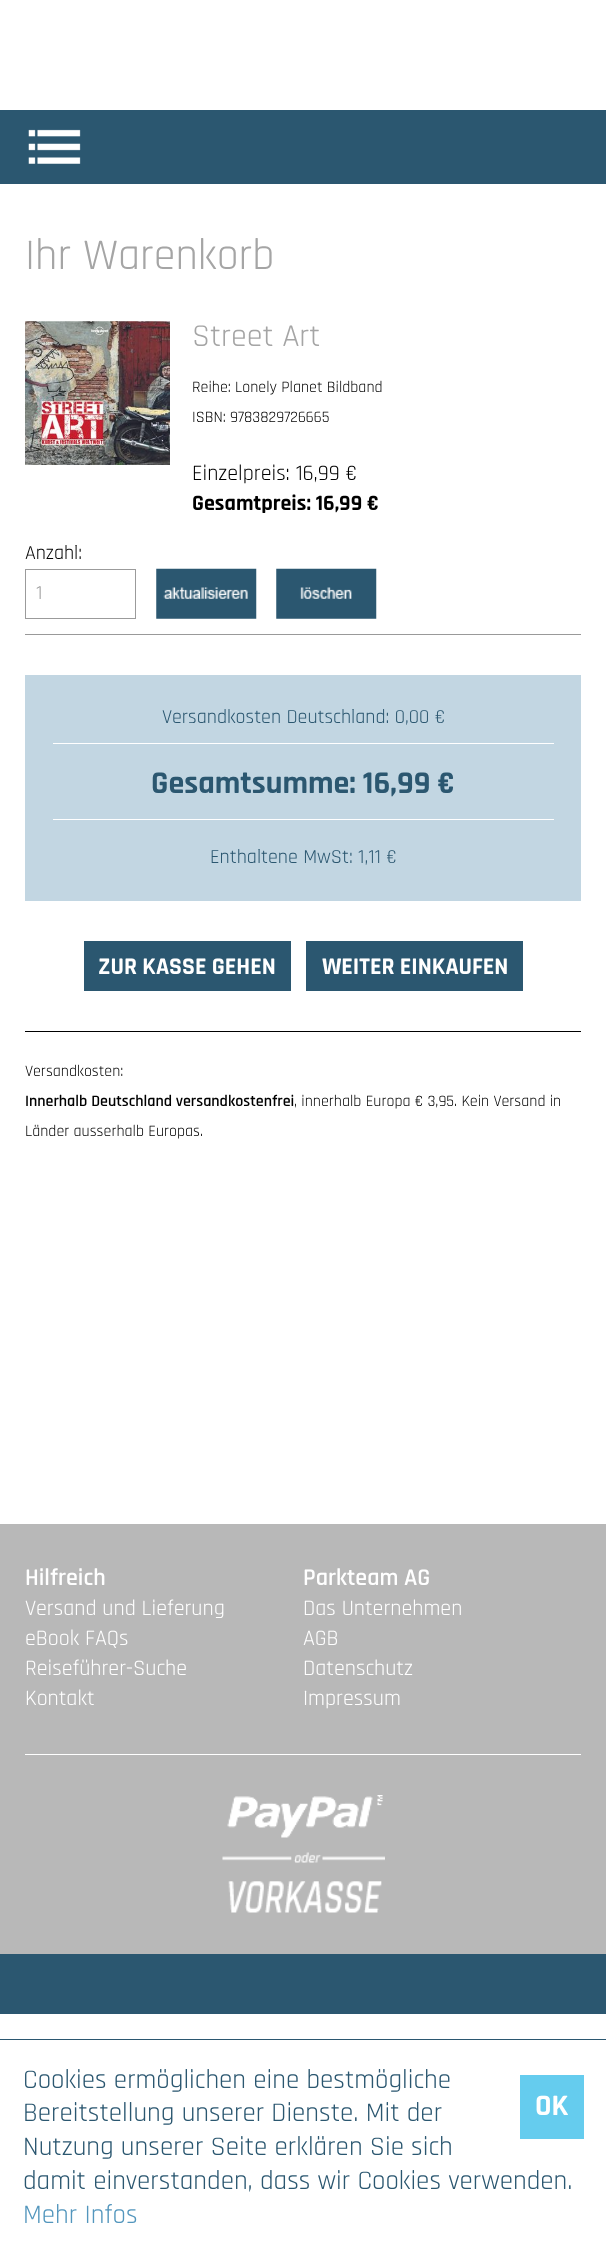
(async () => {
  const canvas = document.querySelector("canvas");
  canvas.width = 606;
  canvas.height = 2253;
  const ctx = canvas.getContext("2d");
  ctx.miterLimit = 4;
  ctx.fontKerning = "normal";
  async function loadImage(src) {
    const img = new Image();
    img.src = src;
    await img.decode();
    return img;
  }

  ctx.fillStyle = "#ffffff";
  ctx.fillRect(0, 0, 606, 2253);
  ctx.fillStyle = "#2b5770";
  ctx.fillRect(0, 110, 606, 74);
  ctx.drawImage(await loadImage("img/1.png"), 28, 129, 53, 35);
  ctx.fillStyle = "#999999";
  ctx.fillRect(25, 634, 556, 1);
  ctx.drawImage(await loadImage("img/2.png"), 25, 321, 145, 144);
  ctx.strokeStyle = "#9b9b9b";
  ctx.strokeRect(25.5, 569.5, 110, 49);
  ctx.drawImage(await loadImage("img/3.png"), 156, 568, 101, 51);
  ctx.drawImage(await loadImage("img/4.png"), 276, 568, 101, 51);
  for (const [x, y, w, h, color] of [
    [25, 675, 556, 226, "#c2d6e2"],
    [53, 743, 501, 1, "#ffffff"],
    [53, 819, 501, 1, "#ffffff"],
    [84, 941, 207, 50, "#2b5770"],
    [306, 941, 217, 50, "#2b5770"],
    [25, 1031, 556, 1, "#000000"],
    [0, 1524, 606, 430, "#b8b8b8"],
    [0, 1954, 606, 60, "#2b5770"],
    [25, 1754, 556, 1, "#ffffff"],
  ]) {
    ctx.fillStyle = color;
    ctx.fillRect(x, y, w, h);
  }
  ctx.drawImage(await loadImage("img/5.png"), 222, 1795, 163, 118);
  ctx.fillStyle = "#2b5770";
  ctx.fillRect(0, 2039, 606, 1);
  ctx.fillStyle = "#65ccee";
  ctx.fillRect(520, 2075, 64, 64);
  ctx.font = "44px Rajdhani";
  ctx.fillStyle = "#a5a5a5";
  ctx.fillText("Ihr Warenkorb", 25, 269);
  ctx.font = "32px Rajdhani";
  ctx.fillText("Street Art", 192, 346);
  ctx.font = "16px Rajdhani";
  ctx.fillStyle = "#000000";
  ctx.fillText("Reihe: Lonely Planet Bildband", 192, 392);
  ctx.fillText("ISBN: 9783829726665", 192, 422);
  ctx.font = "22px Rajdhani";
  ctx.fillText("Einzelpreis: 16,99 €", 192, 480);
  ctx.font = "bold 22px Rajdhani";
  ctx.fillText("Gesamtpreis: 16,99 €", 192, 510);
  ctx.font = "20px Rajdhani";
  ctx.fillText("Anzahl:", 25, 559);
  ctx.fillStyle = "#9b9b9b";
  ctx.fillText("1", 36, 599);
  ctx.fillStyle = "#2b5770";
  ctx.fillText("Versandkosten Deutschland: 0,00 €", 162, 723);
  ctx.font = "bold 32px Rajdhani";
  ctx.fillText("Gesamtsumme: 16,99 €", 151, 793);
  ctx.font = "20px Rajdhani";
  ctx.fillText("Enthaltene MwSt: 1,11 €", 210, 863);
  ctx.font = "bold 24px Rajdhani";
  ctx.fillStyle = "#ffffff";
  ctx.fillText("ZUR KASSE GEHEN", 98, 974);
  ctx.fillText("WEITER EINKAUFEN", 322, 974);
  ctx.font = "16px Rajdhani";
  ctx.fillStyle = "#000000";
  ctx.fillText("Versandkosten:", 25, 1076);
  ctx.font = "600 16px Rajdhani";
  ctx.fillText("Innerhalb Deutschland versandkostenfrei", 25, 1106);
  ctx.font = "16px Rajdhani";
  ctx.fillText(", innerhalb Europa € 3,95. Kein Versand in", 294, 1106);
  ctx.fillText("Länder ausserhalb Europas.", 25, 1136);
  ctx.font = "600 24px Rajdhani";
  ctx.fillStyle = "#ffffff";
  ctx.fillText("Hilfreich", 25, 1585);
  ctx.font = "22px Rajdhani";
  for (const [text, x, y] of [
    ["Versand und Lieferung", 25, 1615],
    ["eBook FAQs", 25, 1645],
    ["Reiseführer-Suche", 25, 1675],
    ["Kontakt", 25, 1705],
  ]) {
    ctx.fillText(text, x, y);
  }
  ctx.font = "600 24px Rajdhani";
  ctx.fillText("Parkteam AG", 303, 1585);
  ctx.font = "22px Rajdhani";
  for (const [text, x, y] of [
    ["Das Unternehmen", 303, 1615],
    ["AGB", 303, 1645],
    ["Datenschutz", 303, 1675],
    ["Impressum", 303, 1705],
  ]) {
    ctx.fillText(text, x, y);
  }
  ctx.font = "27px Rajdhani";
  ctx.fillStyle = "#2b5770";
  for (const [text, x, y] of [
    ["Cookies ermöglichen eine bestmögliche", 23, 2088],
    ["Bereitstellung unserer Dienste. Mit der", 23, 2121],
    ["Nutzung unserer Seite erklären Sie sich", 23, 2155],
    ["damit einverstanden, dass wir Cookies verwenden.", 23, 2189],
  ]) {
    ctx.fillText(text, x, y);
  }
  ctx.fillStyle = "#5396bd";
  ctx.fillText("Mehr Infos", 23, 2223);
  ctx.font = "bold 30px Rajdhani";
  ctx.fillStyle = "#ffffff";
  ctx.fillText("OK", 535, 2115);
})();
